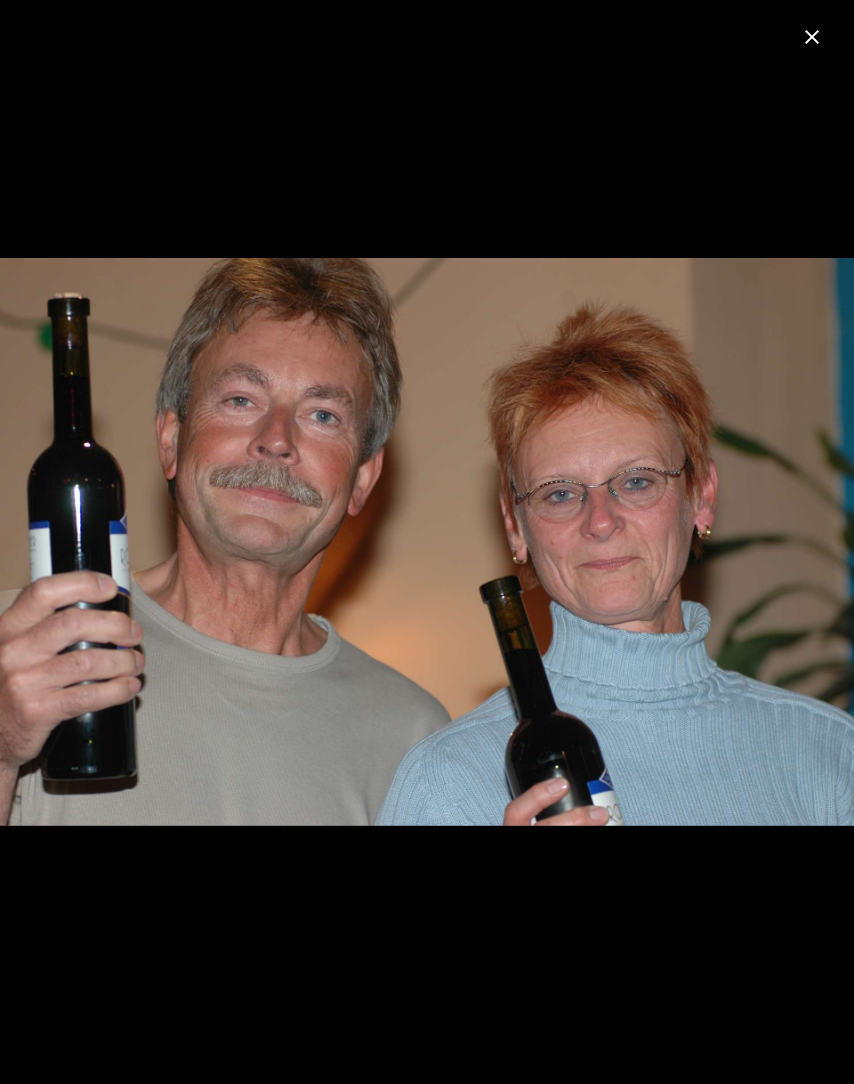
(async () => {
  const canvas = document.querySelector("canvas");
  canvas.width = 854;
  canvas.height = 1084;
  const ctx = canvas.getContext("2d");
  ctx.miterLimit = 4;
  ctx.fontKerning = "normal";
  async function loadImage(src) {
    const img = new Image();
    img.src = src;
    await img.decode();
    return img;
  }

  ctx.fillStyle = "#000000";
  ctx.fillRect(0, 0, 854, 1084);
  ctx.drawImage(await loadImage("img/1.png"), 805, 30, 14, 14);
  ctx.drawImage(await loadImage("img/2.png"), 0, 258, 854, 568);
})();
